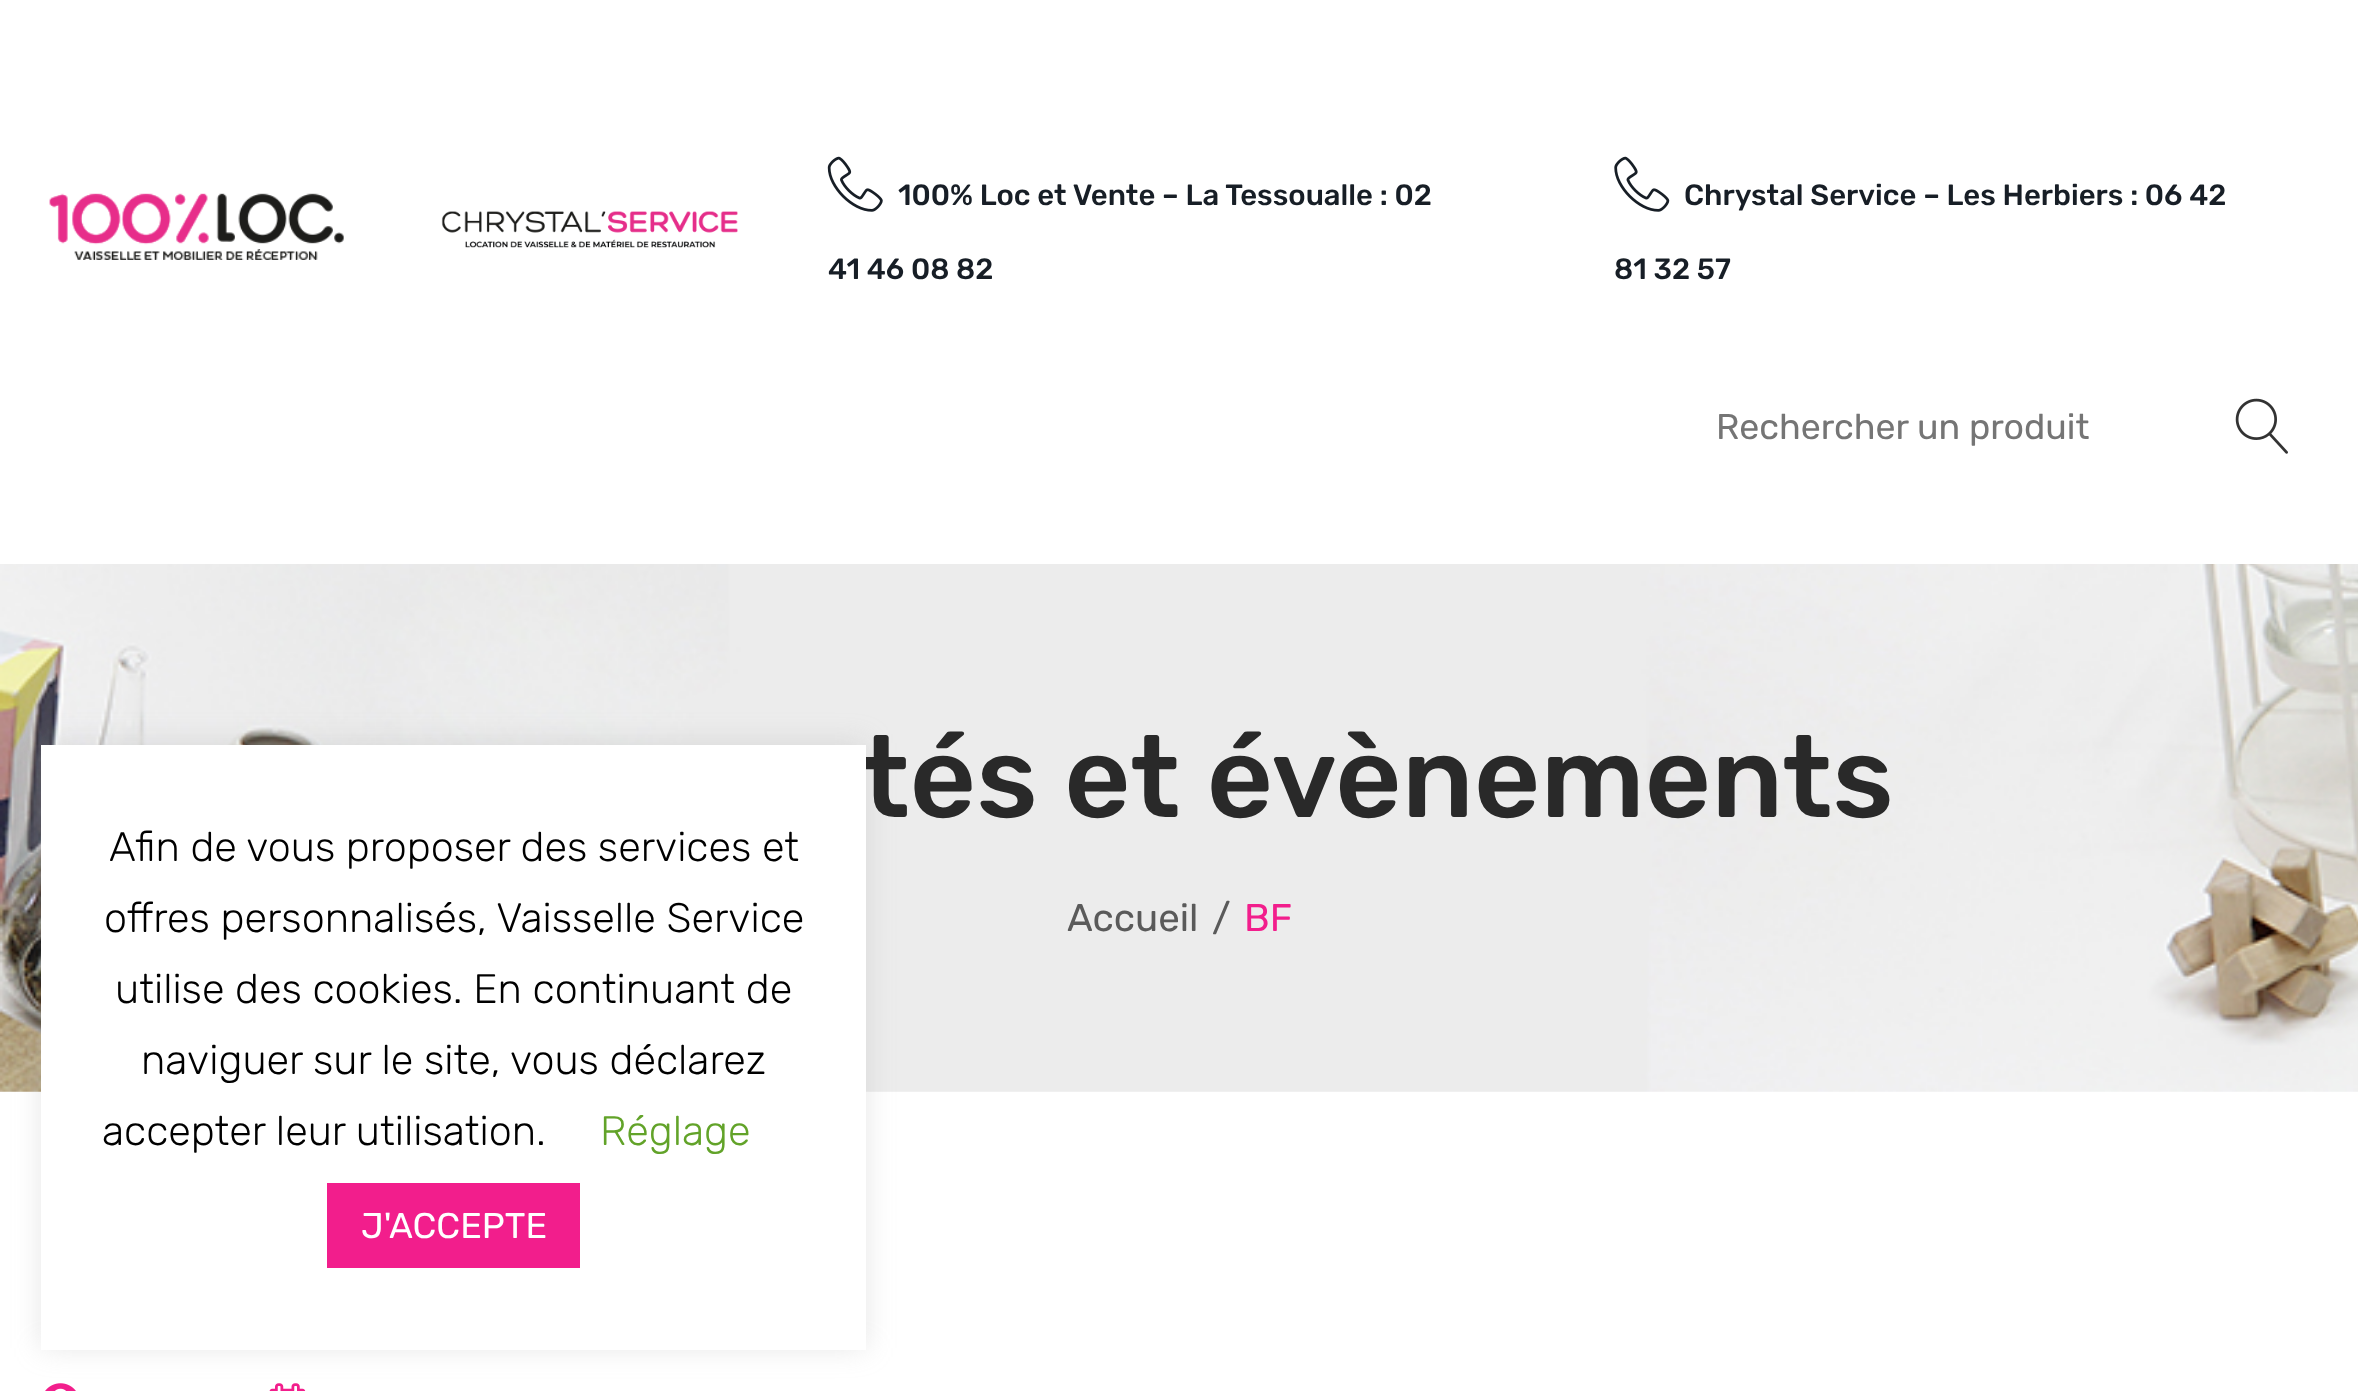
(async () => {
  const canvas = document.querySelector("canvas");
  canvas.width = 2358;
  canvas.height = 1391;
  const ctx = canvas.getContext("2d");
  ctx.miterLimit = 4;
  ctx.fontKerning = "normal";
  async function loadImage(src) {
    const img = new Image();
    img.src = src;
    await img.decode();
    return img;
  }

  ctx.fillStyle = "#ffffff";
  ctx.fillRect(0, 0, 2358, 1391);
  ctx.drawImage(await loadImage("img/1.png"), 49, 193, 295, 67);
  ctx.drawImage(await loadImage("img/2.png"), 441, 211, 297, 37);
  ctx.drawImage(await loadImage("img/3.png"), 827, 156, 56, 56);
  ctx.drawImage(await loadImage("img/4.png"), 1614, 156, 56, 56);
  ctx.drawImage(await loadImage("img/5.png"), 2235, 398, 53, 56);
  ctx.drawImage(await loadImage("img/6.png"), 0, 564, 2358, 528);
  ctx.drawImage(await loadImage("img/7.png"), 45, 1383, 31, 8);
  ctx.drawImage(await loadImage("img/8.png"), 269, 1383, 37, 8);
  ctx.fillStyle = "rgba(172, 171, 171, 0.3)";
  ctx.filter = "blur(14px)";
  ctx.beginPath();
  ctx.rect(41, 743, 825, 605);
  ctx.fill();
  ctx.filter = "none";
  ctx.font = "500 29.3px Rubik";
  ctx.fillStyle = "#171e26";
  for (const [text, x, y] of [
    ["100% Loc et Vente – La Tessoualle : 02", 898, 205],
    ["41 46 08 82", 828, 279],
    ["Chrystal Service – Les Herbiers : 06 42", 1684, 205],
    ["81 32 57", 1614, 279],
  ]) {
    ctx.fillText(text, x, y);
  }
  ctx.font = "35.75px Rubik";
  ctx.fillStyle = "#757575";
  ctx.fillText("Rechercher un produit", 1716, 439);
  ctx.font = "500 115.5px Rubik";
  ctx.fillStyle = "#292929";
  ctx.fillText("tés et évènements", 860, 817);
  ctx.font = "38.5px Rubik";
  ctx.fillStyle = "#5a5a5a";
  ctx.fillText("Accueil", 1067, 931);
  ctx.fillText("/", 1212, 931);
  ctx.fillStyle = "#f21e8c";
  ctx.fillText("BF", 1244, 931);
  ctx.fillStyle = "#ffffff";
  ctx.fillRect(41, 745, 825, 605);
  ctx.font = "300 41.25px Rubik";
  ctx.fillStyle = "#000000";
  for (const [text, x, y] of [
    ["Afin de vous proposer des services et", 109, 861],
    ["offres personnalisés, Vaisselle Service", 104, 932],
    ["utilise des cookies. En continuant de", 115, 1003],
    ["naviguer sur le site, vous déclarez", 141, 1074],
    ["accepter leur utilisation.", 102, 1145],
  ]) {
    ctx.fillText(text, x, y);
  }
  ctx.fillStyle = "#62a329";
  ctx.fillText("Réglage", 600, 1145);
  ctx.fillStyle = "#f21e8c";
  ctx.fillRect(327, 1183, 253, 85);
  ctx.font = "35.75px Rubik";
  ctx.fillStyle = "#ffffff";
  ctx.fillText("J'ACCEPTE", 361, 1238);
})();
